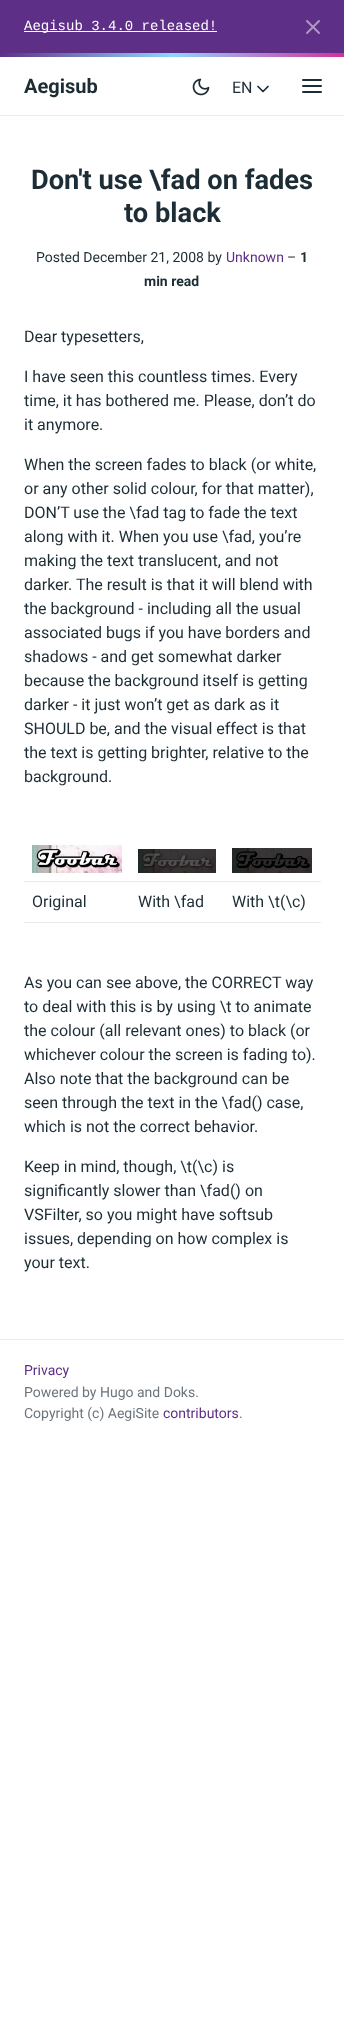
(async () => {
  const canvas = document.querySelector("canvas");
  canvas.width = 344;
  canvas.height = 2038;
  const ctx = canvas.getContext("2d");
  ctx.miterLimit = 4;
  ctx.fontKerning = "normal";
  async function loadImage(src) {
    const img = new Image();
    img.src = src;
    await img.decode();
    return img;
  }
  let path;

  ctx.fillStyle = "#ffffff";
  ctx.fillRect(0, 0, 344, 2038);
  ctx.fillStyle = "#5d2f86";
  ctx.fillRect(0, 0, 344, 53);
  ctx.fillStyle = "#ffffff";
  ctx.fillRect(24, 31, 193, 1);
  path = new Path2D("M319 21L307 33M307 21L319 33");
  ctx.strokeStyle = "#ae97c3";
  ctx.lineWidth = 2;
  ctx.lineCap = "round";
  ctx.lineJoin = "round";
  ctx.stroke(path);
  ctx.drawImage(await loadImage("img/1.png"), 0, 53, 344, 4);
  ctx.fillStyle = "#e9ecef";
  ctx.fillRect(0, 115, 344, 1);
  ctx.drawImage(await loadImage("img/2.png"), 192, 78, 18, 18);
  path = new Path2D("M258 86.5L263 91.5L268 86.5");
  ctx.strokeStyle = "#1d2d35";
  ctx.lineWidth = 1.7;
  ctx.stroke(path);
  path = new Path2D("M303 86H321M303 80H321M303 92H321");
  ctx.lineWidth = 2;
  ctx.stroke(path);
  ctx.drawImage(await loadImage("img/3.png"), 32, 845, 90, 28);
  ctx.fillRect(24, 881, 297, 1);
  ctx.drawImage(await loadImage("img/4.png"), 232, 848, 80, 25);
  ctx.drawImage(await loadImage("img/5.png"), 138, 849, 78, 24);
  ctx.fillRect(24, 922, 297, 1);
  ctx.fillRect(0, 1339, 344, 1);
  ctx.font = "14px Liberation Mono";
  ctx.fillStyle = "#ffffff";
  ctx.fillText("Aegisub 3.4.0 released!", 24, 30);
  ctx.font = "bold 20px Roboto";
  ctx.fillStyle = "#1d2d35";
  ctx.fillText("Aegisub", 24, 93);
  ctx.font = "16px Roboto";
  ctx.fillText("EN", 232, 93);
  ctx.font = "bold 27.25px Roboto";
  ctx.fillText("Don't use \\fad on fades", 31, 189);
  ctx.fillText("to black", 124, 222);
  ctx.font = "14px Roboto";
  ctx.fillText("Posted December 21, 2008 by", 36, 262);
  ctx.fillStyle = "#5d2f86";
  ctx.fillText("Unknown", 226, 262);
  ctx.fillStyle = "#1d2d35";
  ctx.fillText("–", 287, 262);
  ctx.font = "bold 14px Roboto";
  ctx.fillText("1", 300, 262);
  ctx.fillText("min read", 144, 286);
  ctx.font = "16px Roboto";
  for (const [text, x, y] of [
    ["Dear typesetters,", 24, 342],
    ["I have seen this countless times. Every", 24, 382],
    ["time, it has bothered me. Please, don’t do", 24, 406],
    ["it anymore.", 24, 430],
    ["When the screen fades to black (or white,", 24, 470],
    ["or any other solid colour, for that matter),", 24, 494],
    ["DON’T use the \\fad tag to fade the text", 24, 518],
    ["along with it. When you use \\fad, you’re", 24, 542],
    ["making the text translucent, and not", 24, 566],
    ["darker. The result is that it will blend with", 24, 590],
    ["the background - including all the usual", 24, 614],
    ["associated bugs if you have borders and", 24, 638],
    ["shadows - and get somewhat darker", 24, 662],
    ["because the background itself is getting", 24, 686],
    ["darker - it just won’t get as dark as it", 24, 710],
    ["SHOULD be, and the visual effect is that", 24, 734],
    ["the text is getting brighter, relative to the", 24, 758],
    ["background.", 24, 782],
    ["Original", 32, 907],
    ["With \\fad", 138, 907],
    ["With \\t(\\c)", 232, 907],
    ["As you can see above, the CORRECT way", 24, 988],
    ["to deal with this is by using \\t to animate", 24, 1012],
    ["the colour (all relevant ones) to black (or", 24, 1036],
    ["whichever colour the screen is fading to).", 24, 1060],
    ["Also note that the background can be", 24, 1084],
    ["seen through the text in the \\fad() case,", 24, 1108],
    ["which is not the correct behavior.", 24, 1132],
    ["Keep in mind, though, \\t(\\c) is", 24, 1172],
    ["significantly slower than \\fad() on", 24, 1196],
    ["VSFilter, so you might have softsub", 24, 1220],
    ["issues, depending on how complex is", 24, 1244],
    ["your text.", 24, 1268],
  ]) {
    ctx.fillText(text, x, y);
  }
  ctx.font = "14px Roboto";
  ctx.fillStyle = "#5d2f86";
  ctx.fillText("Privacy", 24, 1375);
  ctx.fillStyle = "#6c757d";
  ctx.fillText("Powered by Hugo and Doks.", 24, 1397);
  ctx.fillText("Copyright (c) AegiSite", 24, 1418);
  ctx.fillStyle = "#5d2f86";
  ctx.fillText("contributors", 163, 1418);
  ctx.fillStyle = "#6c757d";
  ctx.fillText(".", 239, 1418);
})();
